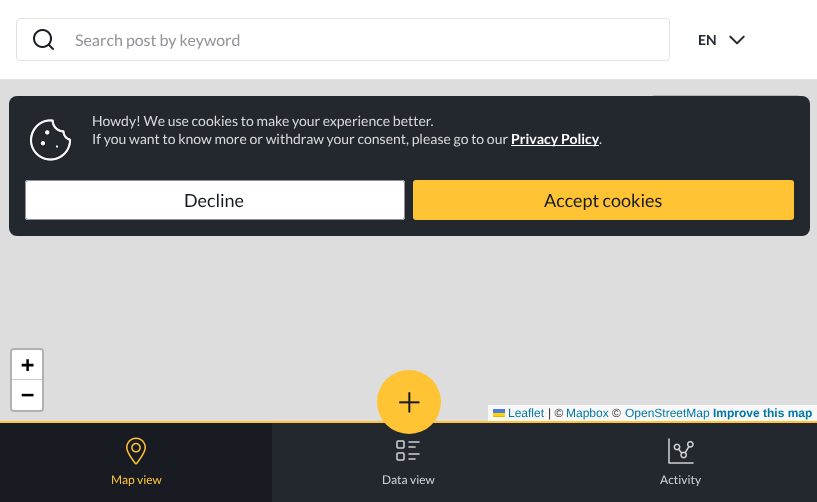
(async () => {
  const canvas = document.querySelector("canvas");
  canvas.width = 817;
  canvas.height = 502;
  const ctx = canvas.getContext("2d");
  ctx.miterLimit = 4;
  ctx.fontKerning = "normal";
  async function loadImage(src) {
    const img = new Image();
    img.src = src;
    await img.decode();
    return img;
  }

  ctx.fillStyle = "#dddddd";
  ctx.fillRect(0, 0, 817, 502);
  ctx.fillStyle = "#ffffff";
  ctx.fillRect(0, 0, 817, 79);
  ctx.fillStyle = "#e2e2e3";
  ctx.fillRect(0, 79, 817, 1);
  ctx.beginPath();
  ctx.roundRect(16.5, 18.5, 653, 42, 3.5);
  ctx.strokeStyle = "#e2e2e3";
  ctx.stroke();
  ctx.drawImage(await loadImage("img/1.png"), 33, 29, 21, 21);
  ctx.beginPath();
  ctx.roundRect(651.5, 95.5, 149, 47, 2.5);
  ctx.strokeStyle = "#b6b7ba";
  ctx.stroke();
  ctx.drawImage(await loadImage("img/2.png"), 729, 35, 16, 10);
  ctx.beginPath();
  ctx.roundRect(11, 349, 32, 62, 3);
  ctx.strokeStyle = "#b1b1b1";
  ctx.lineWidth = 2;
  ctx.stroke();
  ctx.fillStyle = "#ffffff";
  ctx.beginPath();
  ctx.roundRect(12, 350, 30, 30, [2, 2, 0, 0]);
  ctx.fill();
  ctx.fillStyle = "#cccccc";
  ctx.fillRect(12, 379, 30, 1);
  ctx.fillStyle = "#ffffff";
  ctx.beginPath();
  ctx.roundRect(12, 380, 30, 30, [0, 0, 2, 2]);
  ctx.fill();
  for (const [x, y, w, h, color] of [
    [488, 405, 329, 16, "#f8f8f8"],
    [493, 409, 12, 4, "#4c7be1"],
    [493, 413, 12, 3, "#ffd500"],
    [493, 416, 12, 1, "#e0bc00"],
    [0, 421, 817, 2, "#ffc334"],
    [272, 423, 545, 79, "#23282f"],
  ]) {
    ctx.fillStyle = color;
    ctx.fillRect(x, y, w, h);
  }
  ctx.fillStyle = "#ffc334";
  ctx.beginPath();
  ctx.arc(409, 402, 32, 0, Math.PI * 2);
  ctx.fill();
  ctx.drawImage(await loadImage("img/3.png"), 399, 392, 21, 21);
  ctx.fillStyle = "#181b21";
  ctx.fillRect(0, 423, 272, 79);
  ctx.drawImage(await loadImage("img/4.png"), 126, 437, 20, 28);
  ctx.drawImage(await loadImage("img/5.png"), 396, 440, 24, 21);
  ctx.drawImage(await loadImage("img/6.png"), 668, 438, 26, 26);
  ctx.fillStyle = "#23282f";
  ctx.beginPath();
  ctx.roundRect(9, 96, 801, 140, 8);
  ctx.fill();
  ctx.drawImage(await loadImage("img/7.png"), 29, 118, 43, 44);
  ctx.fillStyle = "#ffffff";
  ctx.fillRect(511, 145, 88, 1);
  ctx.beginPath();
  ctx.roundRect(25, 180, 380, 40, 3);
  ctx.fill();
  ctx.beginPath();
  ctx.roundRect(25.5, 180.5, 379, 39, 2.5);
  ctx.strokeStyle = "#919397";
  ctx.lineWidth = 1;
  ctx.stroke();
  ctx.fillStyle = "#ffc334";
  ctx.beginPath();
  ctx.roundRect(413, 180, 381, 40, 3);
  ctx.fill();
  ctx.font = "16px Lato";
  ctx.fillStyle = "#919397";
  ctx.fillText("Search post by keyword", 75, 46);
  ctx.font = "bold 14px Lato";
  ctx.fillStyle = "#23282f";
  ctx.fillText("EN", 698, 45);
  ctx.font = "bold 22px DejaVu Sans Mono";
  ctx.fillStyle = "#000000";
  ctx.fillText("+", 21, 372);
  ctx.fillText("−", 21, 402);
  ctx.font = "12px Liberation Sans";
  ctx.fillStyle = "#0078a8";
  ctx.fillText("Leaflet", 508, 417);
  ctx.fillStyle = "#333333";
  ctx.fillText("| ©", 548, 417);
  ctx.fillStyle = "#0078a8";
  ctx.fillText("Mapbox", 566, 417);
  ctx.fillStyle = "#333333";
  ctx.fillText("©", 612, 417);
  ctx.fillStyle = "#0078a8";
  ctx.fillText("OpenStreetMap", 625, 417);
  ctx.font = "bold 12px Liberation Sans";
  ctx.fillText("Improve this map", 713, 417);
  ctx.font = "12px Lato";
  ctx.fillStyle = "#ffc334";
  ctx.fillText("Map view", 111, 484);
  ctx.fillStyle = "#d3d4d5";
  ctx.fillText("Data view", 382, 484);
  ctx.fillText("Activity", 660, 484);
  ctx.font = "14px Lato";
  ctx.fillStyle = "#dadbdc";
  ctx.fillText("Howdy! We use cookies to make your experience better.", 92, 126);
  ctx.fillText("If you want to know more or withdraw your consent, please go to our", 92, 144);
  ctx.font = "bold 14px Lato";
  ctx.fillStyle = "#ffffff";
  ctx.fillText("Privacy Policy", 511, 144);
  ctx.font = "14px Lato";
  ctx.fillStyle = "#dadbdc";
  ctx.fillText(".", 599, 144);
  ctx.font = "18px Lato";
  ctx.fillStyle = "#181b21";
  ctx.fillText("Decline", 184, 207);
  ctx.fillText("Accept cookies", 544, 207);
})();
